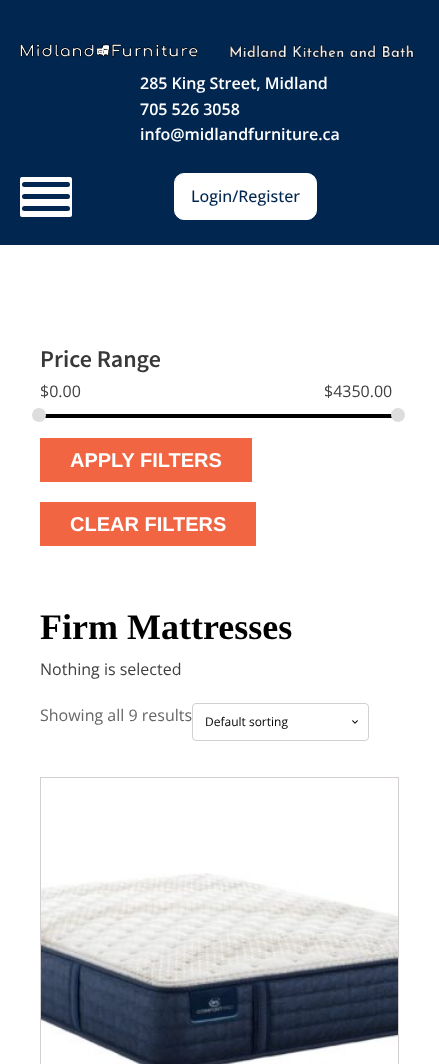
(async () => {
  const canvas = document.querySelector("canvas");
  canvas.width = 439;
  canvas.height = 1064;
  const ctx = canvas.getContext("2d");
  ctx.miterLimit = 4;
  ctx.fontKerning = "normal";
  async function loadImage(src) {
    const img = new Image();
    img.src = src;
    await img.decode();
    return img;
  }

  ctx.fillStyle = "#ffffff";
  ctx.fillRect(0, 0, 439, 1064);
  ctx.fillStyle = "#012650";
  ctx.fillRect(0, 0, 439, 245);
  ctx.drawImage(await loadImage("img/1.png"), 20, 44, 178, 13);
  ctx.drawImage(await loadImage("img/2.png"), 229, 44, 185, 14);
  ctx.fillStyle = "#ffffff";
  ctx.beginPath();
  ctx.roundRect(20, 177, 52, 40, 2);
  ctx.fill();
  ctx.fillStyle = "#012650";
  ctx.beginPath();
  ctx.roundRect(22, 182, 48, 5, 2.5);
  ctx.fill();
  ctx.beginPath();
  ctx.roundRect(22, 194, 48, 5, 2.5);
  ctx.fill();
  ctx.beginPath();
  ctx.roundRect(22, 206, 48, 5, 2.5);
  ctx.fill();
  ctx.fillStyle = "#ffffff";
  ctx.beginPath();
  ctx.roundRect(174.5, 173.5, 142, 46, 9.5);
  ctx.fill();
  ctx.strokeStyle = "#ffffff";
  ctx.stroke();
  ctx.fillStyle = "#000000";
  ctx.fillRect(40, 414, 359, 4);
  ctx.fillStyle = "#dddddd";
  ctx.beginPath();
  ctx.arc(39, 415, 7, 0, Math.PI * 2);
  ctx.fill();
  ctx.beginPath();
  ctx.arc(398, 415, 7, 0, Math.PI * 2);
  ctx.fill();
  ctx.fillStyle = "#f16543";
  ctx.fillRect(40, 438, 212, 44);
  ctx.fillRect(40, 502, 216, 44);
  ctx.drawImage(await loadImage("img/3.png"), 352, 720, 6, 4);
  ctx.beginPath();
  ctx.roundRect(192.5, 703.5, 176, 37, 3.5);
  ctx.strokeStyle = "#d3ced2";
  ctx.stroke();
  ctx.strokeRect(40.5, 777.5, 358, 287);
  ctx.drawImage(await loadImage("img/4.png"), 41, 873, 357, 191);
  ctx.font = "600 16px Open Sans";
  ctx.fillStyle = "#ffffff";
  for (const [text, x, y] of [
    ["285 King Street, Midland", 140, 89],
    ["705 526 3058", 140, 115],
    ["info@midlandfurniture.ca", 140, 140],
  ]) {
    ctx.fillText(text, x, y);
  }
  ctx.font = "500 16px Open Sans";
  ctx.fillStyle = "#012650";
  ctx.fillText("Login/Register", 191, 202);
  ctx.font = "600 24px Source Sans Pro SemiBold";
  ctx.fillStyle = "#383838";
  ctx.fillText("Price Range", 40, 367);
  ctx.font = "16px Open Sans";
  ctx.fillStyle = "#404040";
  ctx.fillText("$0.00", 40, 397);
  ctx.fillText("$4350.00", 324, 397);
  ctx.font = "bold 20px Liberation Sans";
  ctx.fillStyle = "#ffffff";
  ctx.fillText("APPLY FILTERS", 70, 467);
  ctx.fillText("CLEAR FILTERS", 70, 531);
  ctx.font = "bold 36px Liberation Serif";
  ctx.fillStyle = "#000000";
  ctx.fillText("Firm Mattresses", 40, 639);
  ctx.font = "16px Open Sans";
  ctx.fillStyle = "#404040";
  ctx.fillText("Nothing is selected", 40, 675);
  ctx.fillStyle = "#666666";
  ctx.fillText("Showing all 9 results", 40, 721);
  ctx.font = "12px Open Sans";
  ctx.fillStyle = "#000000";
  ctx.fillText("Default sorting", 205, 726);
})();
